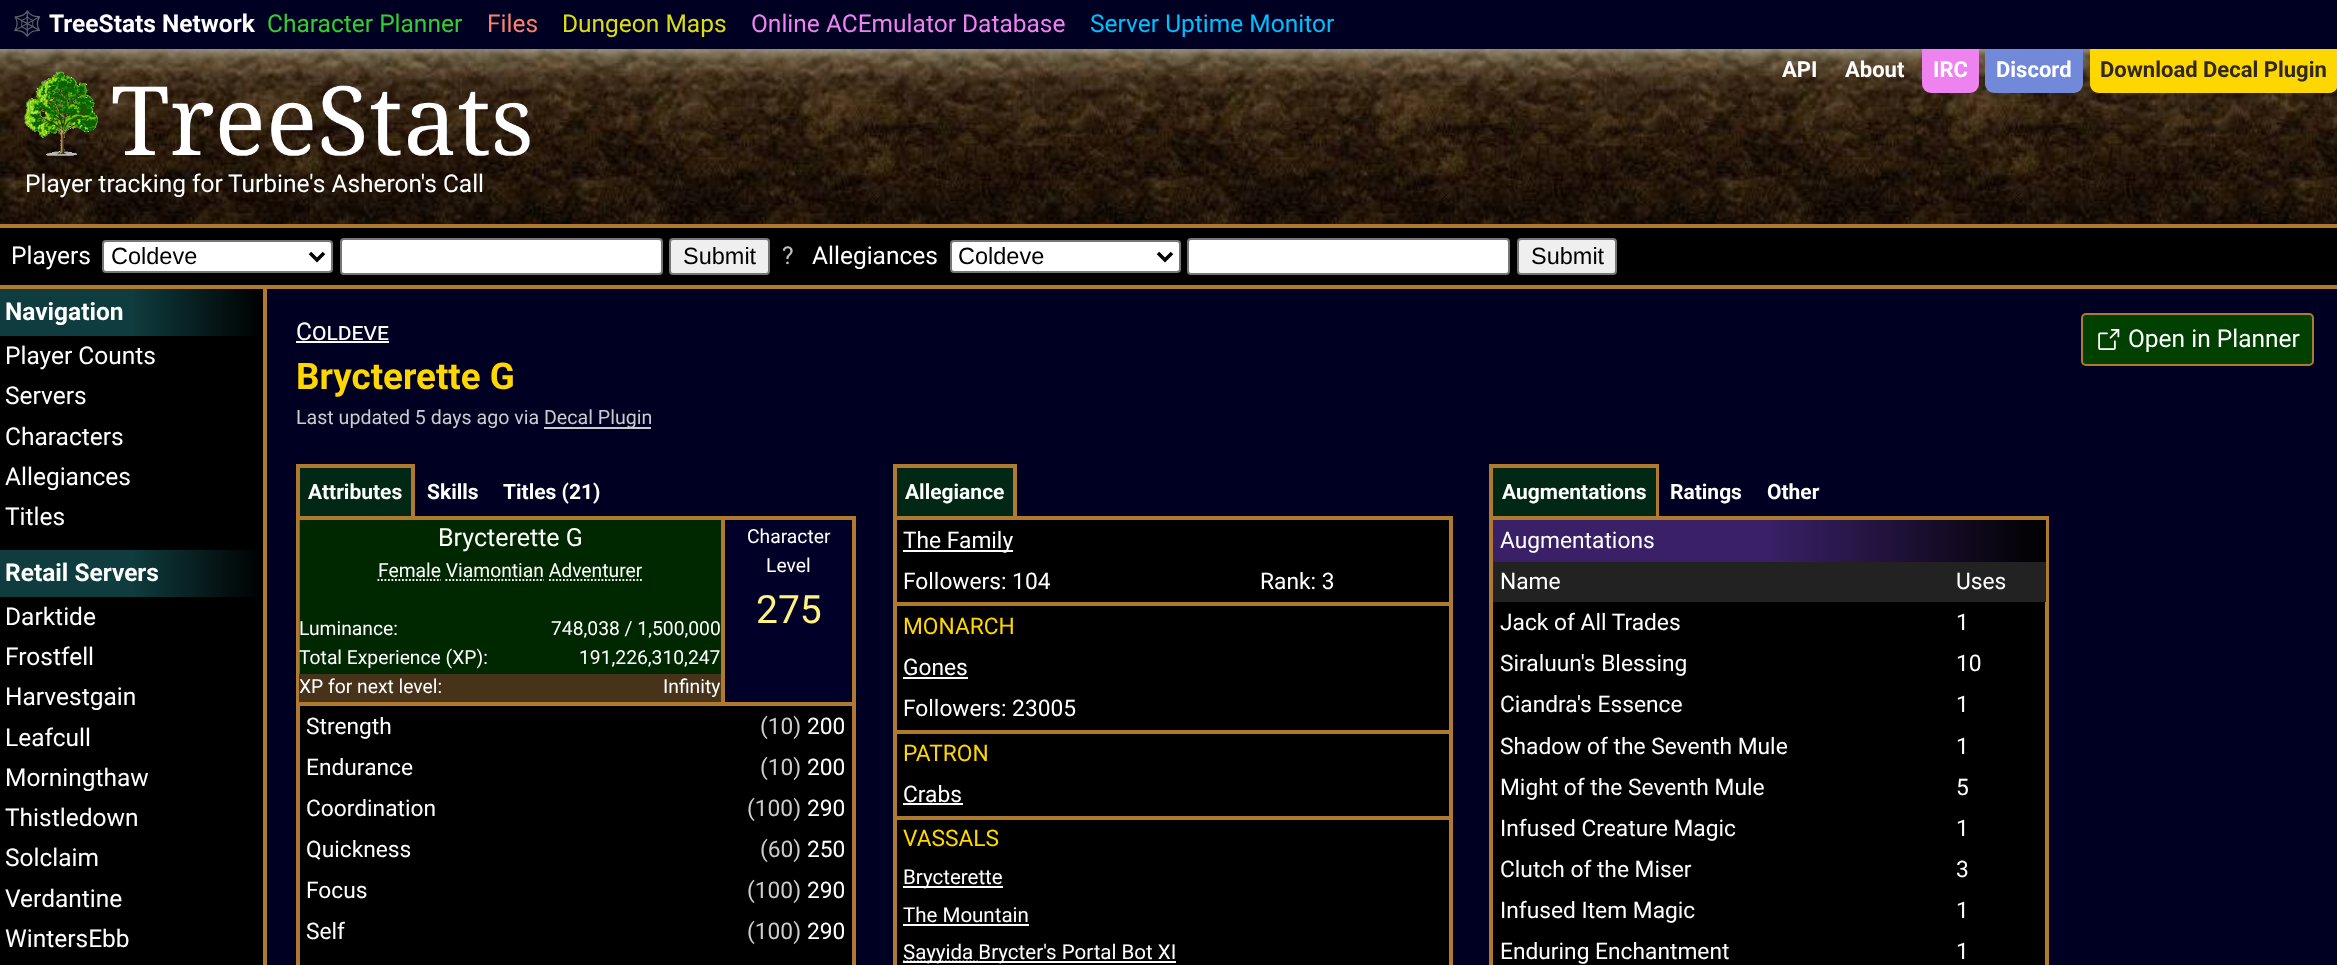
(async () => {
  const canvas = document.querySelector("canvas");
  canvas.width = 2337;
  canvas.height = 965;
  const ctx = canvas.getContext("2d");
  ctx.miterLimit = 4;
  ctx.fontKerning = "normal";
  async function loadImage(src) {
    const img = new Image();
    img.src = src;
    await img.decode();
    return img;
  }
  let gradient, path;

  ctx.fillStyle = "#000022";
  ctx.fillRect(0, 0, 2337, 965);
  ctx.drawImage(await loadImage("img/1.png"), 0, 49, 2337, 175);
  ctx.fillStyle = "#af7a30";
  ctx.fillRect(0, 224, 2337, 4);
  ctx.fillStyle = "#ee82ee";
  ctx.beginPath();
  ctx.roundRect(1922, 49, 57, 44, [0, 0, 9, 9]);
  ctx.fill();
  ctx.fillStyle = "#7289da";
  ctx.beginPath();
  ctx.roundRect(1985, 49, 98, 44, [0, 0, 9, 9]);
  ctx.fill();
  ctx.fillStyle = "#ffd700";
  path = new Path2D("M2090 49H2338V84C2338 89 2334 93 2329 93H2099C2094 93 2090 89 2090 84Z");
  ctx.fill(path);
  ctx.drawImage(await loadImage("img/2.png"), 24, 71, 506, 85);
  ctx.fillStyle = "#000000";
  ctx.fillRect(0, 228, 2337, 57);
  ctx.fillStyle = "#af7a30";
  ctx.fillRect(0, 285, 2337, 4);
  ctx.fillStyle = "#ffffff";
  ctx.beginPath();
  ctx.roundRect(103, 241, 229, 31, 3);
  ctx.fill();
  ctx.strokeStyle = "#767676";
  ctx.lineWidth = 2;
  ctx.stroke();
  path = new Path2D("M310 253L317 260L324 253");
  ctx.strokeStyle = "#000000";
  ctx.lineWidth = 3.5;
  ctx.stroke(path);
  ctx.beginPath();
  ctx.roundRect(341, 239, 321, 35, 3);
  ctx.fill();
  ctx.strokeStyle = "#767676";
  ctx.lineWidth = 2;
  ctx.stroke();
  ctx.fillStyle = "#efefef";
  ctx.beginPath();
  ctx.roundRect(670, 239, 99, 35, 3);
  ctx.fill();
  ctx.stroke();
  ctx.fillStyle = "#ffffff";
  ctx.beginPath();
  ctx.roundRect(951, 241, 229, 31, 3);
  ctx.fill();
  ctx.stroke();
  path = new Path2D("M1158 253L1165 260L1172 253");
  ctx.strokeStyle = "#000000";
  ctx.lineWidth = 3.5;
  ctx.stroke(path);
  ctx.beginPath();
  ctx.roundRect(1188, 239, 321, 35, 3);
  ctx.fill();
  ctx.strokeStyle = "#767676";
  ctx.lineWidth = 2;
  ctx.stroke();
  ctx.fillStyle = "#efefef";
  ctx.beginPath();
  ctx.roundRect(1518, 239, 98, 35, 3);
  ctx.fill();
  ctx.stroke();
  ctx.fillStyle = "#000000";
  ctx.fillRect(0, 336, 263, 629);
  ctx.fillStyle = "#af7a30";
  ctx.fillRect(263, 289, 4, 676);
  gradient = ctx.createLinearGradient(0, 312, 263, 312);
  gradient.addColorStop(0, "#0f3c3e");
  gradient.addColorStop(0.5, "#0f3c3e");
  gradient.addColorStop(1, "#000000");
  ctx.fillStyle = gradient;
  ctx.fillRect(0, 289, 263, 47);
  gradient = ctx.createLinearGradient(0, 573, 263, 573);
  gradient.addColorStop(0, "#0f3c3e");
  gradient.addColorStop(0.5, "#0f3c3e");
  gradient.addColorStop(1, "#000000");
  ctx.fillStyle = gradient;
  ctx.fillRect(0, 550, 258, 47);
  ctx.fillStyle = "#ffffff";
  ctx.fillRect(296, 341, 93, 2);
  ctx.fillStyle = "#004000";
  ctx.beginPath();
  ctx.roundRect(2082, 314, 231, 51, 4);
  ctx.fill();
  ctx.strokeStyle = "#af7a30";
  ctx.stroke();
  ctx.drawImage(await loadImage("img/3.png"), 2098, 329, 22, 21);
  for (const [x, y, w, h, color] of [
    [544, 427, 107, 2, "#cccccc"],
    [300, 468, 111, 48, "#002814"],
    [296, 464, 119, 4, "#af7a30"],
    [411, 464, 4, 52, "#af7a30"],
    [296, 464, 4, 52, "#af7a30"],
  ]) {
    ctx.fillStyle = color;
    ctx.fillRect(x, y, w, h);
  }
  ctx.fillStyle = "#000000";
  ctx.beginPath();
  ctx.rect(298, 518, 556, 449);
  ctx.fill();
  ctx.lineWidth = 4;
  ctx.stroke();
  for (const [x, y, w, h, color] of [
    [721, 520, 4, 184, "#af7a30"],
    [299, 702, 553, 4, "#af7a30"],
    [299, 520, 422, 154, "rgba(0, 100, 0, 0.4)"],
  ]) {
    ctx.fillStyle = color;
    ctx.fillRect(x, y, w, h);
  }
  path = new Path2D("M377.5 580H441");
  ctx.strokeStyle = "#ffffff";
  ctx.lineWidth = 1.8;
  ctx.setLineDash([1.75, 1.75]);
  ctx.stroke(path);
  path = new Path2D("M445.5 580H544");
  ctx.stroke(path);
  path = new Path2D("M549 580H642.5");
  ctx.stroke(path);
  for (const [x, y, w, h, color] of [
    [299, 674, 422, 28, "#47321a"],
    [725, 520, 127, 182, "#000028"],
    [897, 468, 116, 48, "#002814"],
    [893, 464, 124, 4, "#af7a30"],
    [1013, 464, 4, 52, "#af7a30"],
    [893, 464, 4, 52, "#af7a30"],
  ]) {
    ctx.fillStyle = color;
    ctx.fillRect(x, y, w, h);
  }
  ctx.fillStyle = "#000000";
  ctx.beginPath();
  ctx.rect(895, 518, 556, 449);
  ctx.fill();
  ctx.strokeStyle = "#af7a30";
  ctx.lineWidth = 4;
  ctx.setLineDash([]);
  ctx.stroke();
  for (const [x, y, w, h, color] of [
    [903, 550, 110, 2, "#ffffff"],
    [896, 602, 553, 4, "#af7a30"],
    [903, 677, 65, 2, "#ffffff"],
    [896, 730, 553, 4, "#af7a30"],
    [896, 816, 553, 4, "#af7a30"],
    [903, 803, 60, 2, "#ffffff"],
    [903, 886, 100, 2, "#ffffff"],
    [903, 924, 126, 2, "#ffffff"],
  ]) {
    ctx.fillStyle = color;
    ctx.fillRect(x, y, w, h);
  }
  path = new Path2D("M903 961.5H978");
  ctx.strokeStyle = "#ffffff";
  ctx.lineWidth = 1.8;
  ctx.setLineDash([1.75, 1.75]);
  ctx.stroke(path);
  for (const [x, y, w, h, color] of [
    [903, 961, 273, 2, "#ffffff"],
    [1493, 468, 163, 48, "#002814"],
    [1489, 464, 170, 4, "#af7a30"],
    [1656, 464, 3, 52, "#af7a30"],
    [1489, 464, 4, 52, "#af7a30"],
    [1493, 602, 552, 363, "#000000"],
  ]) {
    ctx.fillStyle = color;
    ctx.fillRect(x, y, w, h);
  }
  ctx.strokeStyle = "#af7a30";
  ctx.lineWidth = 4;
  ctx.setLineDash([]);
  ctx.strokeRect(1491, 518, 556, 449);
  gradient = ctx.createLinearGradient(1493, 541, 2046, 541);
  gradient.addColorStop(0, "#392067");
  gradient.addColorStop(0.5, "#392067");
  gradient.addColorStop(1, "#000000");
  ctx.fillStyle = gradient;
  ctx.fillRect(1493, 520, 553, 42);
  ctx.fillStyle = "#222222";
  ctx.fillRect(1493, 562, 553, 40);
  ctx.font = "24.5px Noto Color Emoji";
  ctx.fillStyle = "#ffffff";
  ctx.fillText("🕸️", 12, 32);
  ctx.font = "bold 24.5px Roboto";
  ctx.fillText("TreeStats Network", 49, 32);
  ctx.font = "24.5px Roboto";
  ctx.fillStyle = "#32cd32";
  ctx.fillText("Character Planner", 267, 32);
  ctx.fillStyle = "#fa8072";
  ctx.fillText("Files", 487, 32);
  ctx.fillStyle = "#dcdc14";
  ctx.fillText("Dungeon Maps", 562, 32);
  ctx.fillStyle = "#ee82ee";
  ctx.fillText("Online ACEmulator Database", 751, 32);
  ctx.fillStyle = "#00bfff";
  ctx.fillText("Server Uptime Monitor", 1090, 32);
  ctx.font = "bold 22px Roboto";
  ctx.fillStyle = "#ffffff";
  for (const [text, x, y] of [
    ["API", 1782, 77],
    ["About", 1845, 77],
    ["IRC", 1933, 77],
    ["Discord", 1996, 77],
  ]) {
    ctx.fillText(text, x, y);
  }
  ctx.fillStyle = "#30291c";
  ctx.fillText("Download Decal Plugin", 2100, 77);
  ctx.font = "24.5px Roboto";
  ctx.fillStyle = "#ffffff";
  for (const [text, x, y] of [
    ["Player tracking for", 25, 192],
    ["Turbine's Asheron's Call", 228, 192],
    ["Players", 11, 264],
  ]) {
    ctx.fillText(text, x, y);
  }
  ctx.font = "23.5px Liberation Sans";
  ctx.fillStyle = "#000000";
  ctx.fillText("Coldeve", 111, 264);
  ctx.fillText("Submit", 683, 264);
  ctx.font = "24.5px Roboto";
  ctx.fillStyle = "#bfbfbf";
  ctx.fillText("?", 782, 264);
  ctx.fillStyle = "#ffffff";
  ctx.fillText("Allegiances", 812, 264);
  ctx.font = "23.5px Liberation Sans";
  ctx.fillStyle = "#000000";
  ctx.fillText("Coldeve", 958, 264);
  ctx.fillText("Submit", 1531, 264);
  ctx.font = "bold 24.5px Roboto";
  ctx.fillStyle = "#ffffff";
  ctx.fillText("Navigation", 5, 320);
  ctx.font = "24.5px Roboto";
  for (const [text, x, y] of [
    ["Player Counts", 5, 364],
    ["Servers", 5, 404],
    ["Characters", 5, 445],
    ["Allegiances", 5, 485],
    ["Titles", 5, 525],
  ]) {
    ctx.fillText(text, x, y);
  }
  ctx.font = "bold 24.5px Roboto";
  ctx.fillText("Retail Servers", 5, 581);
  ctx.font = "24.5px Roboto";
  for (const [text, x, y] of [
    ["Darktide", 5, 625],
    ["Frostfell", 5, 665],
    ["Harvestgain", 5, 705],
    ["Leafcull", 5, 746],
    ["Morningthaw", 5, 786],
    ["Thistledown", 5, 826],
    ["Solclaim", 5, 866],
    ["Verdantine", 5, 907],
    ["WintersEbb", 5, 947],
  ]) {
    ctx.fillText(text, x, y);
  }
  ctx.font = "24.5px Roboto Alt";
  ctx.fillText("Coldeve", 296, 340);
  ctx.font = "bold 36.75px Roboto";
  ctx.fillStyle = "#ffd700";
  ctx.fillText("Brycterette G", 296, 389);
  ctx.font = "24.5px Roboto";
  ctx.fillStyle = "#ffffff";
  ctx.fillText("Open in Planner", 2128, 347);
  ctx.font = "19.6px Roboto";
  ctx.fillStyle = "#cccccc";
  ctx.fillText("Last updated 5 days ago via", 296, 424);
  ctx.fillText("Decal Plugin", 544, 424);
  ctx.font = "bold 21px Roboto";
  ctx.fillStyle = "#ffffff";
  for (const [text, x, y] of [
    ["Attributes", 308, 499],
    ["Skills", 427, 499],
    ["Titles (21)", 503, 499],
  ]) {
    ctx.fillText(text, x, y);
  }
  ctx.font = "25px Roboto";
  ctx.fillText("Brycterette G", 438, 546);
  ctx.font = "19.3px Roboto";
  for (const [text, x, y] of [
    ["Female Viamontian Adventurer", 378, 577],
    ["Luminance:", 299, 635],
    ["748,038 / 1,500,000", 551, 635],
    ["Total Experience (XP):", 299, 664],
    ["191,226,310,247", 579, 664],
    ["XP for next level:", 299, 693],
    ["Infinity", 663, 693],
    ["Character", 747, 543],
    ["Level", 766, 572],
  ]) {
    ctx.fillText(text, x, y);
  }
  ctx.font = "39px Roboto";
  ctx.fillStyle = "#fff27f";
  ctx.fillText("275", 756, 623);
  ctx.font = "22.75px Roboto";
  ctx.fillStyle = "#ffffff";
  ctx.fillText("Strength", 306, 734);
  ctx.fillStyle = "#cccccc";
  ctx.fillText("(10)", 760, 734);
  ctx.fillStyle = "#ffffff";
  ctx.fillText("200", 807, 734);
  ctx.fillText("Endurance", 306, 775);
  ctx.fillStyle = "#cccccc";
  ctx.fillText("(10)", 760, 775);
  ctx.fillStyle = "#ffffff";
  ctx.fillText("200", 807, 775);
  ctx.fillText("Coordination", 306, 816);
  ctx.fillStyle = "#cccccc";
  ctx.fillText("(100)", 747, 816);
  ctx.fillStyle = "#ffffff";
  ctx.fillText("290", 807, 816);
  ctx.fillText("Quickness", 306, 857);
  ctx.fillStyle = "#cccccc";
  ctx.fillText("(60)", 760, 857);
  ctx.fillStyle = "#ffffff";
  ctx.fillText("250", 807, 857);
  ctx.fillText("Focus", 306, 898);
  ctx.fillStyle = "#cccccc";
  ctx.fillText("(100)", 747, 898);
  ctx.fillStyle = "#ffffff";
  ctx.fillText("290", 807, 898);
  ctx.fillText("Self", 306, 939);
  ctx.fillStyle = "#cccccc";
  ctx.fillText("(100)", 747, 939);
  ctx.fillStyle = "#ffffff";
  ctx.fillText("290", 807, 939);
  ctx.font = "bold 21px Roboto";
  ctx.fillText("Allegiance", 905, 499);
  ctx.font = "22.75px Roboto";
  for (const [text, x, y] of [
    ["The Family", 903, 548],
    ["Followers: 104", 903, 589],
    ["Rank: 3", 1260, 589],
  ]) {
    ctx.fillText(text, x, y);
  }
  ctx.fillStyle = "#ffd700";
  ctx.fillText("MONARCH", 903, 634);
  ctx.fillStyle = "#ffffff";
  ctx.fillText("Gones", 903, 675);
  ctx.fillText("Followers: 23005", 903, 716);
  ctx.fillStyle = "#ffd700";
  ctx.fillText("PATRON", 903, 761);
  ctx.fillStyle = "#ffffff";
  ctx.fillText("Crabs", 903, 802);
  ctx.fillStyle = "#ffd700";
  ctx.fillText("VASSALS", 903, 846);
  ctx.font = "20.5px Roboto";
  ctx.fillStyle = "#ffffff";
  for (const [text, x, y] of [
    ["Brycterette", 903, 884],
    ["The Mountain", 903, 922],
    ["Sayyida Brycter's Portal Bot XI", 903, 959],
  ]) {
    ctx.fillText(text, x, y);
  }
  ctx.font = "bold 21px Roboto";
  for (const [text, x, y] of [
    ["Augmentations", 1502, 499],
    ["Ratings", 1670, 499],
    ["Other", 1767, 499],
  ]) {
    ctx.fillText(text, x, y);
  }
  ctx.font = "22.75px Roboto";
  for (const [text, x, y] of [
    ["Augmentations", 1500, 548],
    ["Name", 1500, 589],
    ["Uses", 1956, 589],
    ["Jack of All Trades", 1500, 630],
    ["1", 1956, 630],
    ["Siraluun's Blessing", 1500, 671],
    ["10", 1956, 671],
    ["Ciandra's Essence", 1500, 712],
    ["1", 1956, 712],
    ["Shadow of the Seventh Mule", 1500, 754],
    ["1", 1956, 754],
    ["Might of the Seventh Mule", 1500, 795],
    ["5", 1956, 795],
    ["Infused Creature Magic", 1500, 836],
    ["1", 1956, 836],
    ["Clutch of the Miser", 1500, 877],
    ["3", 1956, 877],
    ["Infused Item Magic", 1500, 918],
    ["1", 1956, 918],
    ["Enduring Enchantment", 1500, 959],
    ["1", 1956, 959],
  ]) {
    ctx.fillText(text, x, y);
  }
})();
